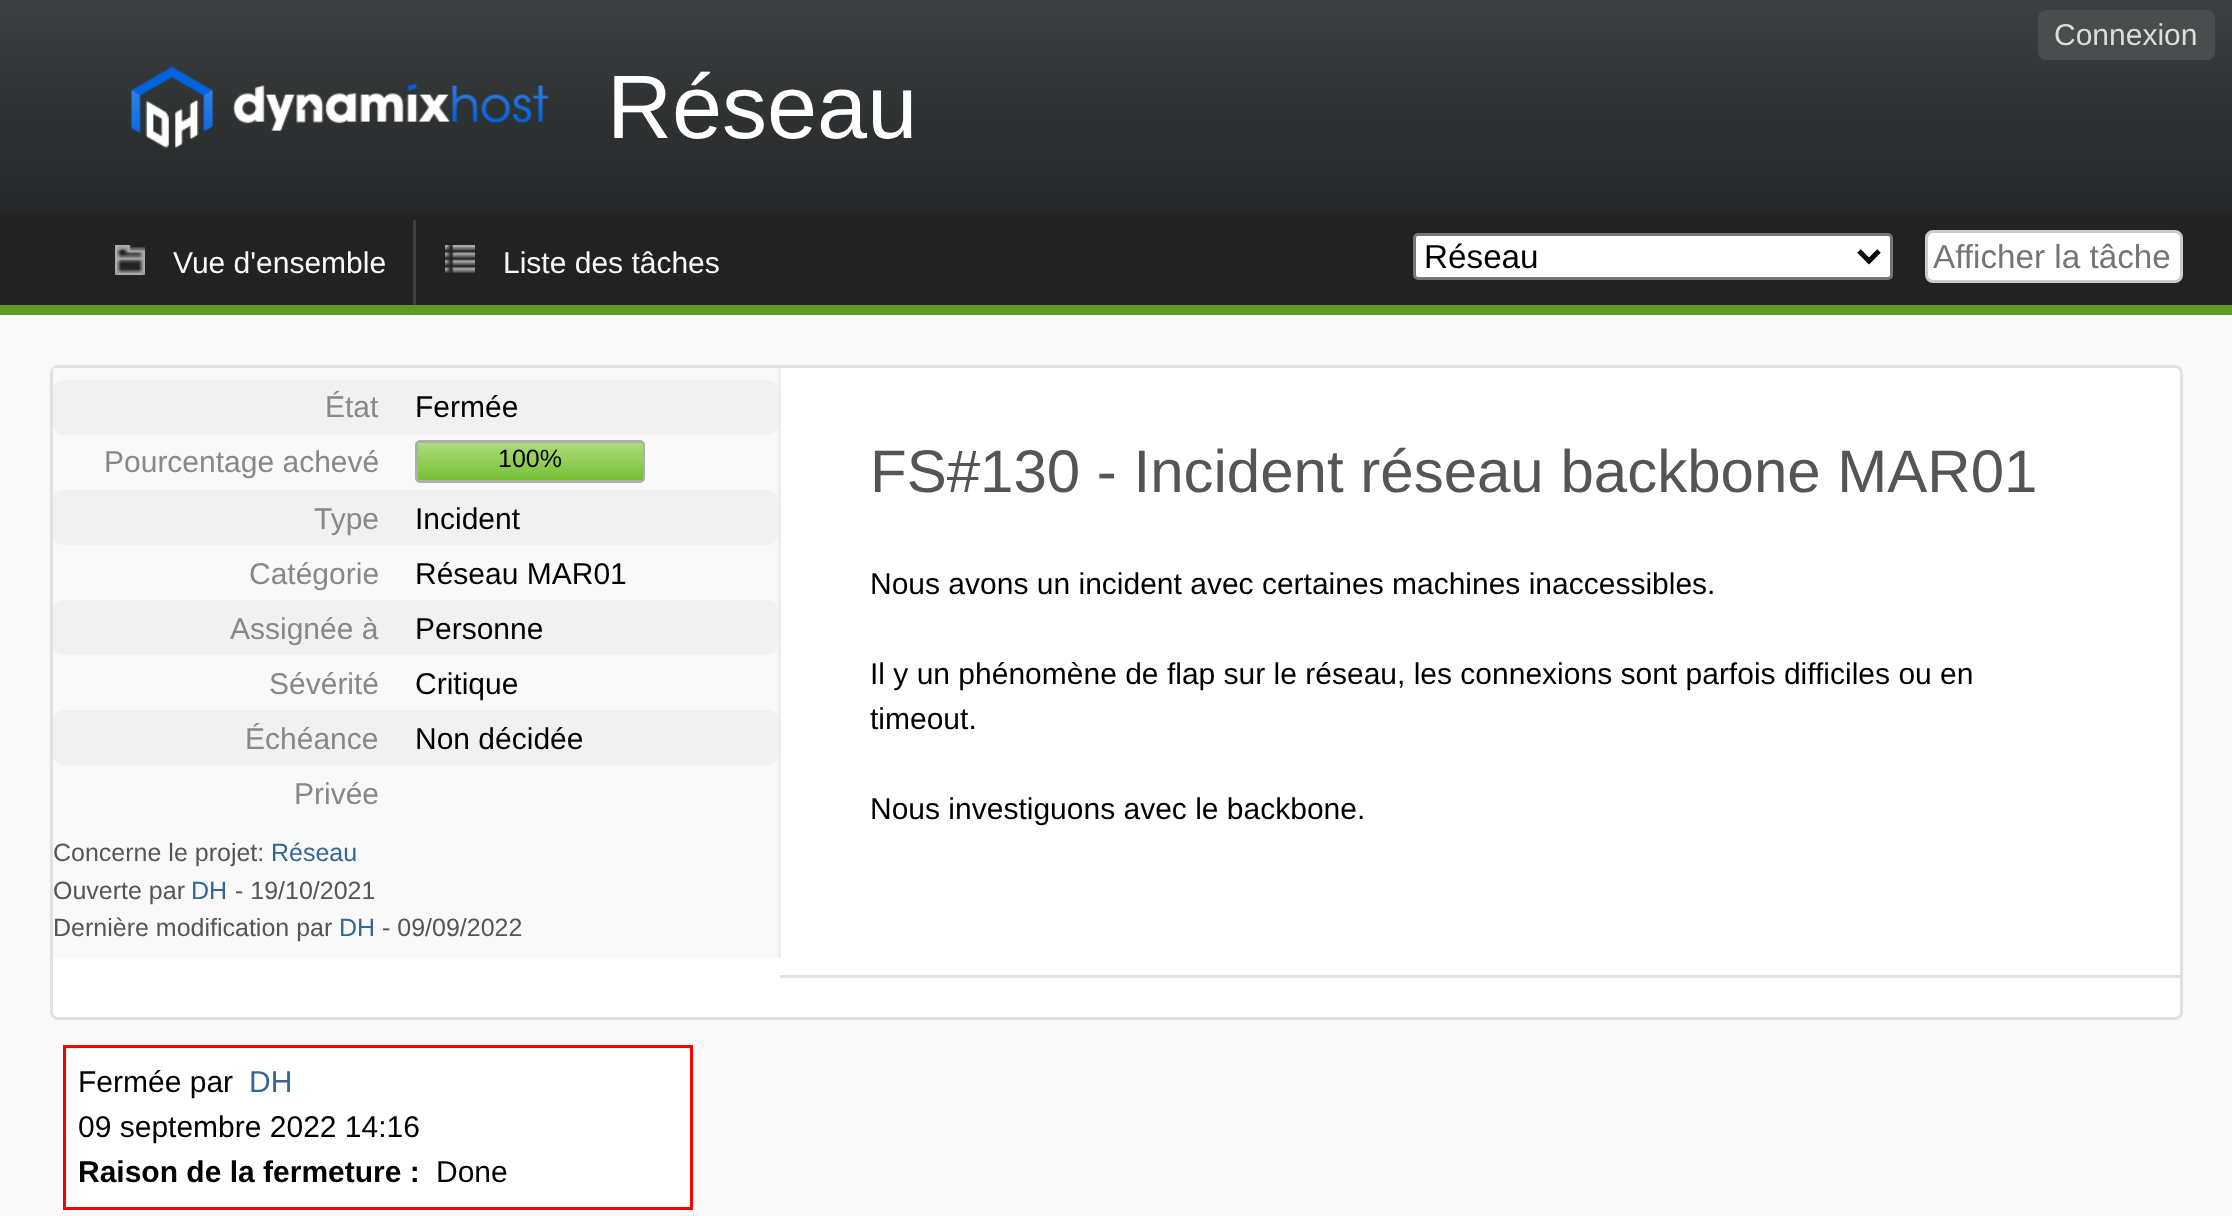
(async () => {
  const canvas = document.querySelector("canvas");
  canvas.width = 2232;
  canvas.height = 1216;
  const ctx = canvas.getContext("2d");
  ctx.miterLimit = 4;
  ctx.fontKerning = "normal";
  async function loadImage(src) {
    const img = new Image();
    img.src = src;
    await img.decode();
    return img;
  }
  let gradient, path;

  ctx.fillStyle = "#f9f9f9";
  ctx.fillRect(0, 0, 2232, 1216);
  gradient = ctx.createLinearGradient(1116, 0, 1116, 215);
  gradient.addColorStop(0, "#3c4041");
  gradient.addColorStop(1, "#242627");
  ctx.fillStyle = gradient;
  ctx.fillRect(0, 0, 2232, 215);
  ctx.fillStyle = "#494d4e";
  ctx.beginPath();
  ctx.roundRect(2038, 10, 177, 50, 8);
  ctx.fill();
  ctx.drawImage(await loadImage("img/1.png"), 131, 66, 418, 82);
  ctx.fillStyle = "#222222";
  ctx.fillRect(0, 215, 2232, 90);
  ctx.fillStyle = "#5f9729";
  ctx.fillRect(0, 305, 2232, 10);
  ctx.drawImage(await loadImage("img/2.png"), 115, 245, 30, 30);
  ctx.drawImage(await loadImage("img/3.png"), 445, 245, 30, 28);
  ctx.fillStyle = "#3c4041";
  ctx.fillRect(413, 220, 3, 85);
  ctx.fillStyle = "#ffffff";
  ctx.beginPath();
  ctx.roundRect(1414.5, 234.5, 477, 44, 3.5);
  ctx.fill();
  ctx.strokeStyle = "#767676";
  ctx.lineWidth = 3;
  ctx.stroke();
  path = new Path2D("M1859 251L1869 261L1879 251");
  ctx.strokeStyle = "#000000";
  ctx.lineWidth = 5;
  ctx.stroke(path);
  ctx.beginPath();
  ctx.roundRect(1926.5, 231.5, 255, 50, 6.5);
  ctx.fill();
  ctx.strokeStyle = "#cccccc";
  ctx.lineWidth = 3;
  ctx.stroke();
  ctx.beginPath();
  ctx.roundRect(51.5, 366.5, 2130, 652, 6.5);
  ctx.fill();
  ctx.strokeStyle = "#e1e1e1";
  ctx.stroke();
  ctx.fillStyle = "#f9f9f9";
  ctx.fillRect(53, 368, 725, 590);
  ctx.fillStyle = "#eeeeee";
  ctx.fillRect(778, 368, 3, 590);
  ctx.fillStyle = "#f1f1f1";
  ctx.beginPath();
  ctx.roundRect(53, 380, 725, 55, 10);
  ctx.fill();
  ctx.beginPath();
  ctx.roundRect(416.5, 441.5, 227, 40, 3.5);
  ctx.strokeStyle = "#aeaeae";
  ctx.stroke();
  gradient = ctx.createLinearGradient(530, 443, 530, 480);
  gradient.addColorStop(0, "#acdc7d");
  gradient.addColorStop(1, "#78bf34");
  ctx.fillStyle = gradient;
  ctx.fillRect(418, 443, 225, 37);
  ctx.fillStyle = "#f1f1f1";
  ctx.beginPath();
  ctx.roundRect(53, 490, 725, 55, 10);
  ctx.fill();
  ctx.beginPath();
  ctx.roundRect(53, 600, 725, 55, 10);
  ctx.fill();
  ctx.beginPath();
  ctx.roundRect(53, 710, 725, 55, 10);
  ctx.fill();
  ctx.fillStyle = "#e1e1e1";
  ctx.fillRect(780, 975, 1400, 3);
  ctx.fillStyle = "#ffffff";
  ctx.beginPath();
  ctx.rect(64.5, 1046.5, 627, 162);
  ctx.fill();
  ctx.strokeStyle = "#ff0000";
  ctx.stroke();
  ctx.font = "30px Liberation Sans";
  ctx.fillStyle = "#dddddd";
  ctx.fillText("Connexion", 2054, 45);
  ctx.font = "90px Liberation Sans";
  ctx.fillStyle = "#ffffff";
  ctx.fillText("Réseau", 607, 138);
  ctx.font = "30px Liberation Sans";
  ctx.fillStyle = "#f9f9f9";
  ctx.fillText("Vue d'ensemble", 173, 273);
  ctx.fillText("Liste des tâches", 503, 273);
  ctx.font = "33.25px Liberation Sans";
  ctx.fillStyle = "#000000";
  ctx.fillText("Réseau", 1424, 268);
  ctx.fillStyle = "#757575";
  ctx.fillText("Afficher la tâche", 1933, 268);
  ctx.font = "30px Liberation Sans";
  ctx.fillStyle = "#888888";
  ctx.fillText("État", 325, 417);
  ctx.fillStyle = "#000000";
  ctx.fillText("Fermée", 415, 417);
  ctx.fillStyle = "#888888";
  ctx.fillText("Pourcentage achevé", 104, 472);
  ctx.font = "25px Liberation Sans";
  ctx.fillStyle = "#000000";
  ctx.fillText("100%", 498, 467);
  ctx.font = "30px Liberation Sans";
  ctx.fillStyle = "#888888";
  ctx.fillText("Type", 314, 529);
  ctx.fillStyle = "#000000";
  ctx.fillText("Incident", 415, 529);
  ctx.fillStyle = "#888888";
  ctx.fillText("Catégorie", 249, 584);
  ctx.fillStyle = "#000000";
  ctx.fillText("Réseau MAR01", 415, 584);
  ctx.fillStyle = "#888888";
  ctx.fillText("Assignée à", 230, 639);
  ctx.fillStyle = "#000000";
  ctx.fillText("Personne", 415, 639);
  ctx.fillStyle = "#888888";
  ctx.fillText("Sévérité", 269, 694);
  ctx.fillStyle = "#000000";
  ctx.fillText("Critique", 415, 694);
  ctx.fillStyle = "#888888";
  ctx.fillText("Échéance", 245, 749);
  ctx.fillStyle = "#000000";
  ctx.fillText("Non décidée", 415, 749);
  ctx.fillStyle = "#888888";
  ctx.fillText("Privée", 294, 804);
  ctx.font = "25px Liberation Sans";
  ctx.fillStyle = "#555555";
  ctx.fillText("Concerne le projet:", 53, 861);
  ctx.fillStyle = "#336699";
  ctx.fillText("Réseau", 271, 861);
  ctx.fillStyle = "#555555";
  ctx.fillText("Ouverte par", 53, 899);
  ctx.fillStyle = "#336699";
  ctx.fillText("DH", 191, 899);
  ctx.fillStyle = "#555555";
  ctx.fillText("- 19/10/2021", 235, 899);
  ctx.fillText("Dernière modification par", 53, 936);
  ctx.fillStyle = "#336699";
  ctx.fillText("DH", 339, 936);
  ctx.fillStyle = "#555555";
  ctx.fillText("- 09/09/2022", 382, 936);
  ctx.font = "60px Liberation Sans";
  ctx.fillText("FS#130 - Incident réseau backbone MAR01", 870, 492);
  ctx.font = "30px Liberation Sans";
  ctx.fillStyle = "#000000";
  for (const [text, x, y] of [
    ["Nous avons un incident avec certaines machines inaccessibles.", 870, 594],
    ["Il y un phénomène de flap sur le réseau, les connexions sont parfois difficiles ou en", 870, 684],
    ["timeout.", 870, 729],
    ["Nous investiguons avec le backbone.", 870, 819],
    ["Fermée par", 78, 1092],
  ]) {
    ctx.fillText(text, x, y);
  }
  ctx.fillStyle = "#336699";
  ctx.fillText("DH", 249, 1092);
  ctx.fillStyle = "#000000";
  ctx.fillText("09 septembre 2022 14:16", 78, 1137);
  ctx.font = "bold 30px Liberation Sans";
  ctx.fillText("Raison de la fermeture :", 78, 1182);
  ctx.font = "30px Liberation Sans";
  ctx.fillText("Done", 436, 1182);
})();
